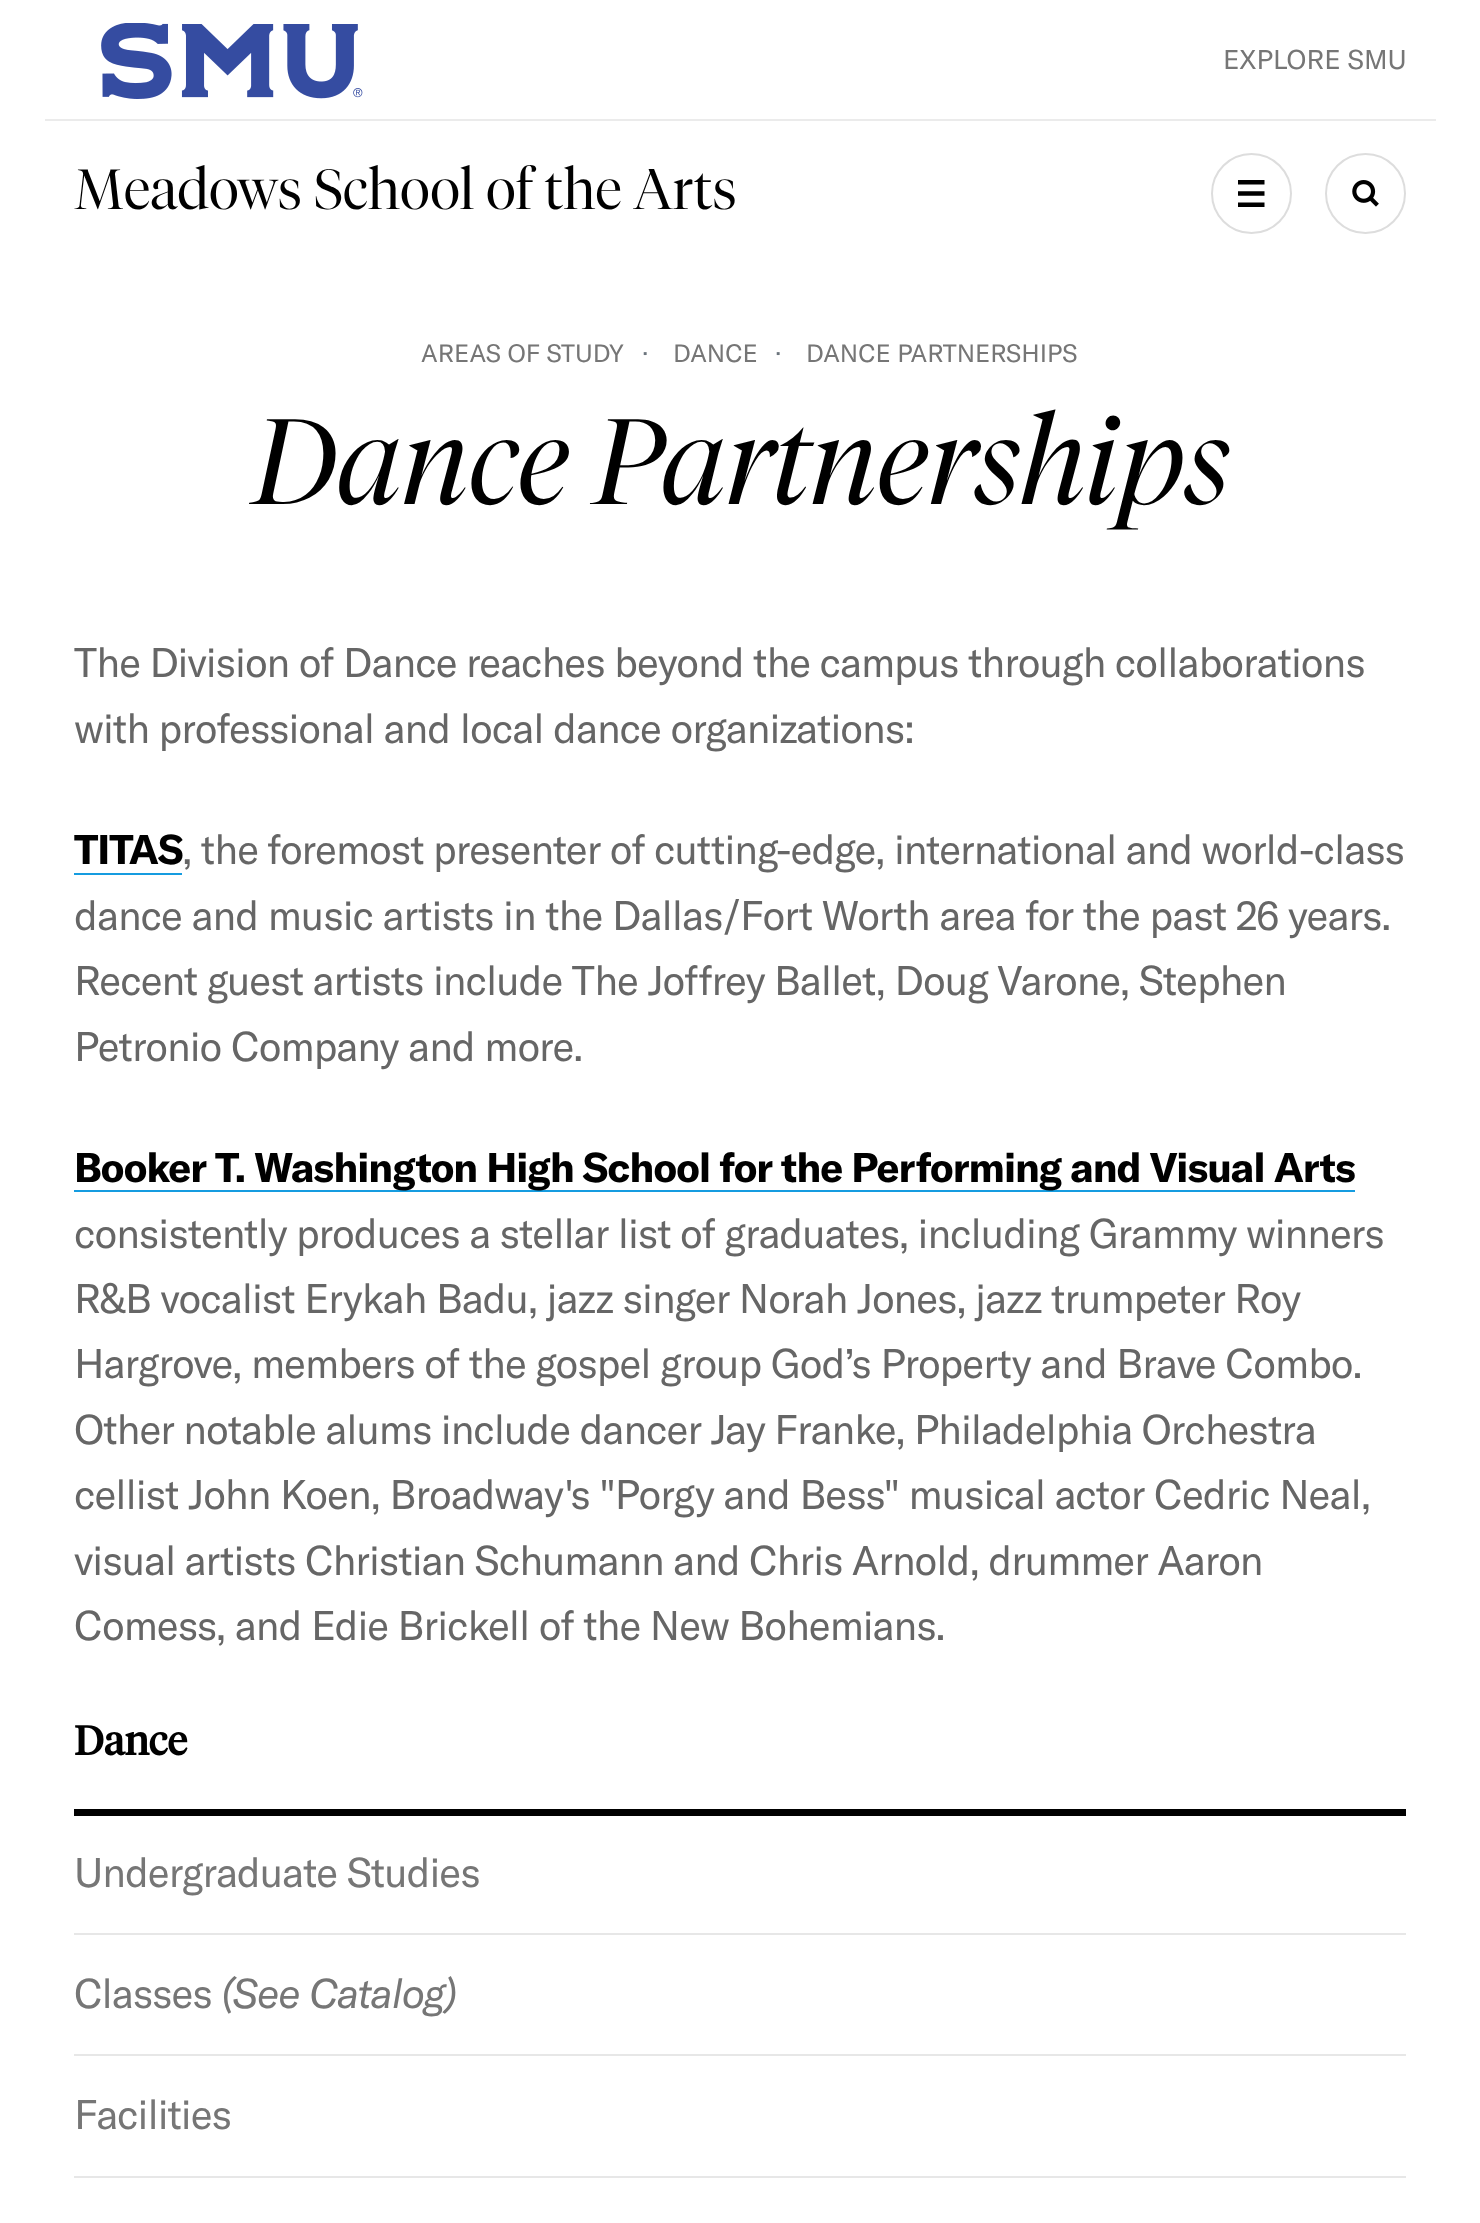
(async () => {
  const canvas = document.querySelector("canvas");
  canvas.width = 1480;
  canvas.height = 2223;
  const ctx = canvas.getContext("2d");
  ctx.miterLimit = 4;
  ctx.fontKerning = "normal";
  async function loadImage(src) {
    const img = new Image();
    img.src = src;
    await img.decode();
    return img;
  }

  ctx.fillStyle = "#ffffff";
  ctx.fillRect(0, 0, 1480, 2223);
  ctx.drawImage(await loadImage("img/1.png"), 101, 23, 262, 76);
  ctx.fillStyle = "#ebebeb";
  ctx.fillRect(45, 119, 1391, 2);
  ctx.beginPath();
  ctx.arc(1251.5, 193.5, 39.5, 0, Math.PI * 2);
  ctx.strokeStyle = "#dddddd";
  ctx.lineWidth = 2;
  ctx.stroke();
  ctx.drawImage(await loadImage("img/2.png"), 1238, 180, 27, 27);
  ctx.beginPath();
  ctx.arc(1365.5, 193.5, 39.5, 0, Math.PI * 2);
  ctx.stroke();
  ctx.drawImage(await loadImage("img/3.png"), 1352, 180, 27, 27);
  for (const [x, y, w, h, color] of [
    [74, 873, 108, 2, "#159ce0"],
    [74, 1190, 1281, 2, "#159ce0"],
    [74, 1809, 1332, 7, "#000000"],
    [74, 1933, 1332, 2, "#e7e7e7"],
    [74, 2054, 1332, 2, "#e7e7e7"],
    [74, 2176, 1332, 2, "#e7e7e7"],
  ]) {
    ctx.fillStyle = color;
    ctx.fillRect(x, y, w, h);
  }
  ctx.font = "26.75px GT America";
  ctx.fillStyle = "#767676";
  ctx.fillText("EXPLORE SMU", 1223, 69);
  ctx.font = "300 56.25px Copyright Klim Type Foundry";
  ctx.fillStyle = "#000000";
  ctx.fillText("Meadows School of the Arts", 74, 209);
  ctx.font = "24.75px GT America";
  ctx.fillStyle = "#767676";
  ctx.fillText("AREAS OF STUDY", 421, 362);
  ctx.fillStyle = "#6c757d";
  ctx.fillText("·", 642, 362);
  ctx.fillStyle = "#767676";
  ctx.fillText("DANCE", 673, 362);
  ctx.fillStyle = "#6c757d";
  ctx.fillText("·", 775, 362);
  ctx.fillStyle = "#767676";
  ctx.fillText("DANCE PARTNERSHIPS", 806, 362);
  ctx.font = "italic 300 120.75px Copyright Klim Type Foundry";
  ctx.fillStyle = "#000000";
  ctx.fillText("Dance Partnerships", 252, 504);
  ctx.letterSpacing = "-1.02px";
  ctx.wordSpacing = "-0.25px";
  ctx.font = "40.9px GT America";
  ctx.fillStyle = "#666666";
  ctx.fillText("The Division of Dance reaches beyond the campus through collaborations", 74, 677);
  ctx.wordSpacing = "0px";
  ctx.fillText("with professional and local dance organizations:", 74, 743);
  ctx.font = "bold 40.9px GT America";
  ctx.fillStyle = "#000000";
  ctx.fillText("TITAS", 74, 864);
  ctx.wordSpacing = "-0.25px";
  ctx.font = "40.9px GT America";
  ctx.fillStyle = "#666666";
  ctx.fillText(", the foremost presenter of cutting-edge, international and world-class", 182, 864);
  ctx.wordSpacing = "0px";
  ctx.fillText("dance and music artists in the Dallas/Fort Worth area for the past 26 years.", 74, 930);
  ctx.wordSpacing = "-0.1px";
  ctx.fillText("Recent guest artists include The Joffrey Ballet, Doug Varone, Stephen", 74, 995);
  ctx.wordSpacing = "0px";
  ctx.fillText("Petronio Company and more.", 74, 1061);
  ctx.wordSpacing = "-0.1px";
  ctx.font = "bold 40.9px GT America";
  ctx.fillStyle = "#000000";
  ctx.fillText("Booker T. Washington High School for the Performing and Visual Arts", 74, 1182);
  ctx.wordSpacing = "-0.25px";
  ctx.font = "40.9px GT America";
  ctx.fillStyle = "#666666";
  ctx.fillText("consistently produces a stellar list of graduates, including Grammy winners", 74, 1248);
  ctx.wordSpacing = "-0.1px";
  ctx.fillText("R&B vocalist Erykah Badu, jazz singer Norah Jones, jazz trumpeter Roy", 74, 1313);
  ctx.fillText("Hargrove, members of the gospel group God’s Property and Brave Combo.", 74, 1378);
  ctx.wordSpacing = "-0.25px";
  ctx.fillText("Other notable alums include dancer Jay Franke, Philadelphia Orchestra", 74, 1444);
  ctx.wordSpacing = "-0.1px";
  ctx.fillText("cellist John Koen, Broadway's \"Porgy and Bess\" musical actor Cedric Neal,", 74, 1509);
  ctx.wordSpacing = "-0.25px";
  ctx.fillText("visual artists Christian Schumann and Chris Arnold, drummer Aaron", 74, 1575);
  ctx.wordSpacing = "-0.1px";
  ctx.fillText("Comess, and Edie Brickell of the New Bohemians.", 74, 1640);
  ctx.letterSpacing = "0px";
  ctx.wordSpacing = "0px";
  ctx.font = "bold 40.9px Copyright Klim Type Foundry";
  ctx.fillStyle = "#000000";
  ctx.fillText("Dance", 74, 1755);
  ctx.letterSpacing = "-1.02px";
  ctx.font = "40.9px GT America";
  ctx.fillStyle = "#767676";
  ctx.fillText("Undergraduate Studies", 74, 1887);
  ctx.fillText("Classes", 74, 2008);
  ctx.font = "italic 40.9px GT America";
  ctx.fillText("(See Catalog)", 221, 2008);
  ctx.font = "40.9px GT America";
  ctx.fillText("Facilities", 74, 2129);
})();
